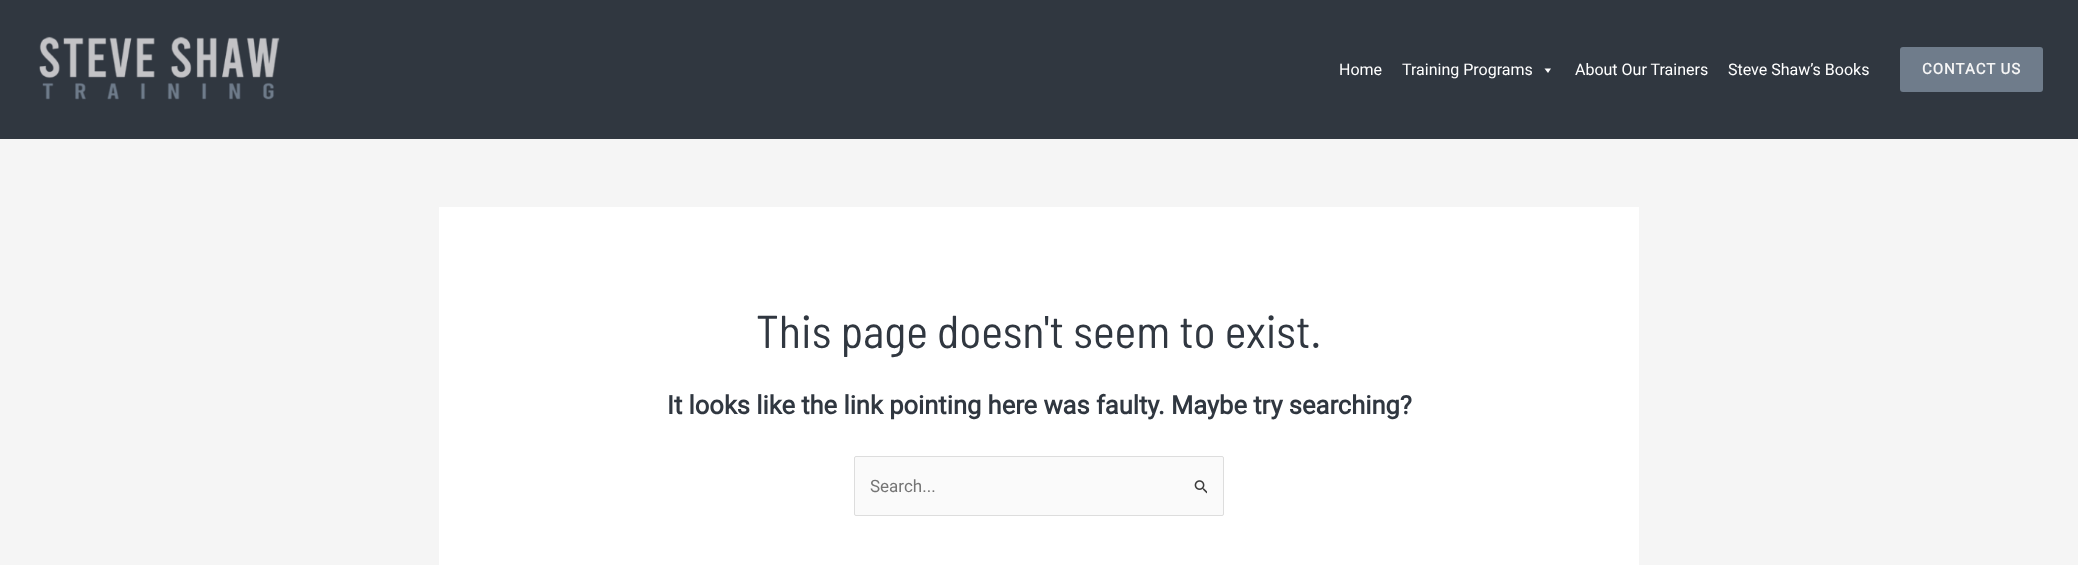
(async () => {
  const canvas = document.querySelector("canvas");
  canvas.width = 2078;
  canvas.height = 565;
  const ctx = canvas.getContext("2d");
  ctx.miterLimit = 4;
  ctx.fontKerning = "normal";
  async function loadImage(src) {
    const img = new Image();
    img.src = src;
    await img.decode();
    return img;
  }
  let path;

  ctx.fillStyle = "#f5f5f5";
  ctx.fillRect(0, 0, 2078, 565);
  ctx.fillStyle = "#303740";
  ctx.fillRect(0, 0, 2078, 139);
  ctx.drawImage(await loadImage("img/1.png"), 39, 36, 241, 64);
  ctx.fillStyle = "#ffffff";
  path = new Path2D("M1551 68.5L1548 73L1544.5 68.5Z");
  ctx.fill(path);
  ctx.fillStyle = "#6f7c8b";
  ctx.beginPath();
  ctx.roundRect(1900, 47, 143, 45, 3);
  ctx.fill();
  ctx.fillStyle = "#ffffff";
  ctx.fillRect(439, 207, 1200, 358);
  ctx.fillStyle = "#fafafa";
  ctx.beginPath();
  ctx.roundRect(854.5, 456.5, 369, 59, 1.5);
  ctx.fill();
  ctx.strokeStyle = "#dddddd";
  ctx.stroke();
  ctx.drawImage(await loadImage("img/2.png"), 1194, 480, 13, 14);
  ctx.font = "16px Roboto";
  ctx.fillStyle = "#ffffff";
  for (const [text, x, y] of [
    ["Home", 1339, 75],
    ["Training Programs", 1402, 75],
    ["About Our Trainers", 1575, 75],
    ["Steve Shaw’s Books", 1728, 75],
  ]) {
    ctx.fillText(text, x, y);
  }
  ctx.letterSpacing = "1px";
  ctx.font = "bold 15px Roboto";
  ctx.fillStyle = "#f5f5f5";
  ctx.fillText("CONTACT US", 1922, 74);
  ctx.letterSpacing = "0px";
  ctx.font = "46px Barlow Semi Condensed";
  ctx.fillStyle = "#303740";
  ctx.fillText("This page doesn't seem to exist.", 756, 348);
  ctx.font = "bold 25.5px Roboto";
  ctx.fillText("It looks like the link pointing here was faulty. Maybe try searching?", 667, 414);
  ctx.font = "17px Roboto";
  ctx.fillStyle = "#757575";
  ctx.fillText("Search...", 870, 492);
})();
